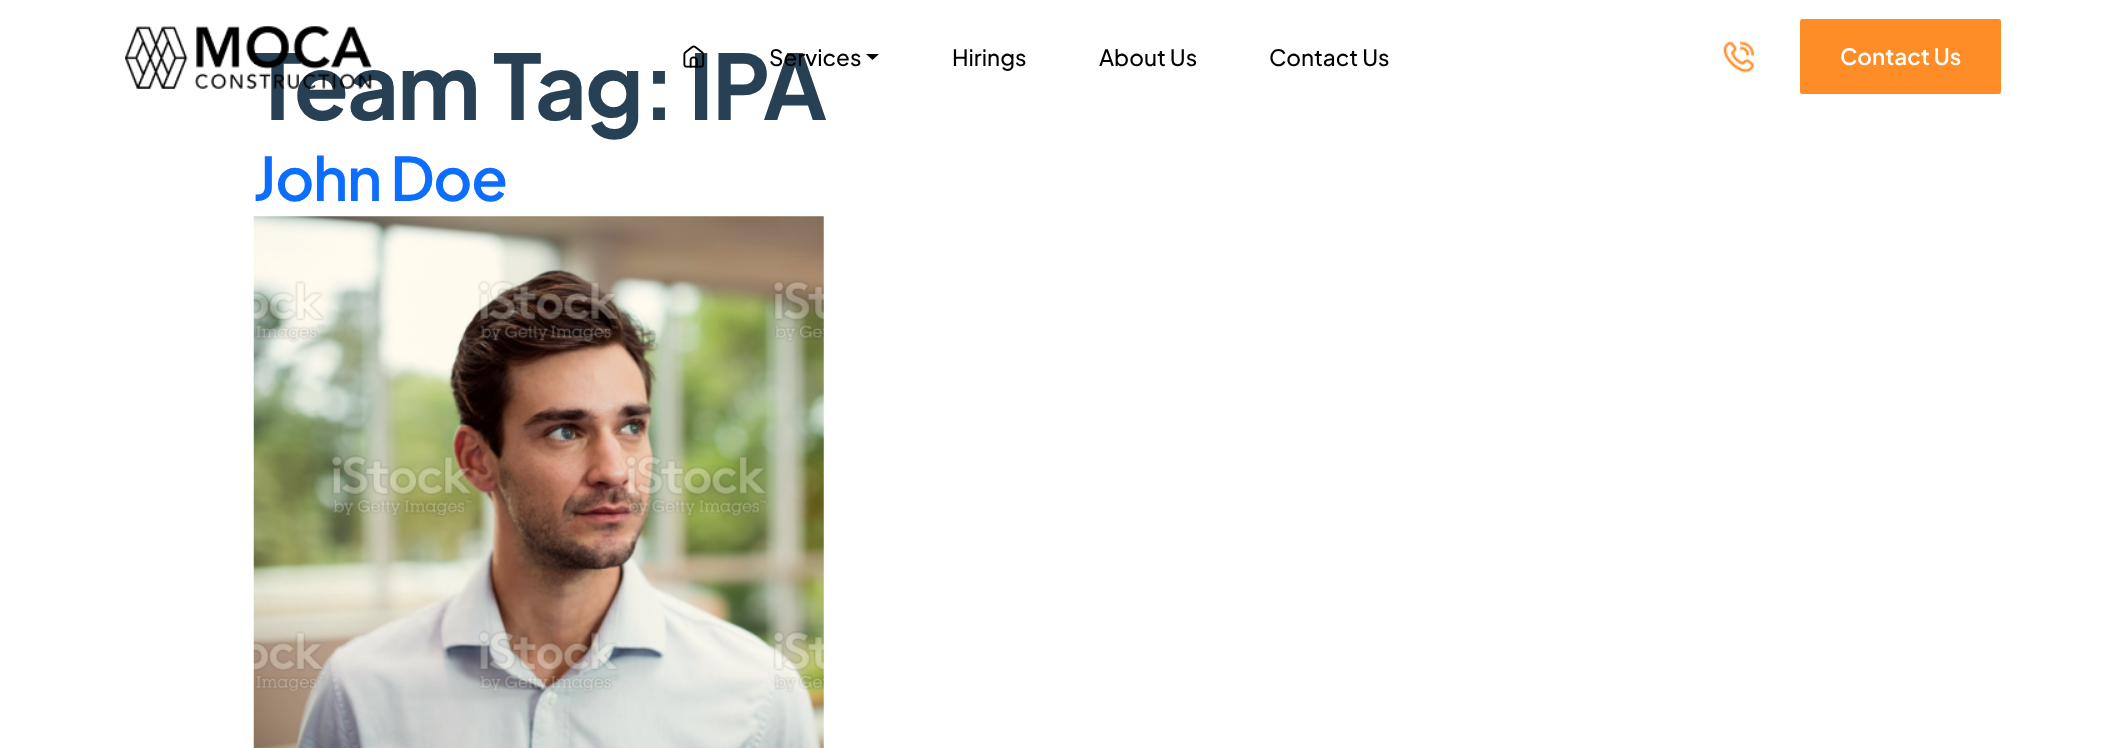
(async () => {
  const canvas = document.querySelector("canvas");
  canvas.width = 2126;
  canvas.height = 748;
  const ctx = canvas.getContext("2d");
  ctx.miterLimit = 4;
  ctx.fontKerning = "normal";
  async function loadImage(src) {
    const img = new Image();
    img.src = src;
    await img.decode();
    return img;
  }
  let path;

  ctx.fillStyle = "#ffffff";
  ctx.fillRect(0, 0, 2126, 748);
  ctx.drawImage(await loadImage("img/1.png"), 253, 216, 571, 532);
  ctx.fillStyle = "#000000";
  path = new Path2D("M866 54H879L872.5 60Z");
  ctx.fill(path);
  ctx.drawImage(await loadImage("img/4.png"), 1723, 41, 31, 32);
  ctx.fillStyle = "#ff8d27";
  ctx.beginPath();
  ctx.roundRect(1800, 19, 201, 75, 2.5);
  ctx.fill();
  ctx.letterSpacing = "-1.75px";
  ctx.font = "bold 90px Plus Jakarta Sans";
  ctx.fillStyle = "#284053";
  ctx.fillText("Team Tag: IPA", 253, 120);
  ctx.letterSpacing = "-1.25px";
  ctx.font = "600 60px Plus Jakarta Sans";
  ctx.fillStyle = "#0d6efd";
  ctx.fillText("John Doe", 253, 201);
  ctx.drawImage(await loadImage("img/2.png"), 125, 26, 247, 63);
  ctx.drawImage(await loadImage("img/3.png"), 683, 45, 22, 23);
  ctx.letterSpacing = "0px";
  ctx.font = "500 22.5px Plus Jakarta Sans";
  ctx.fillStyle = "#000000";
  for (const [text, x, y] of [
    ["Services", 769, 66],
    ["Hirings", 952, 66],
    ["About Us", 1099, 66],
    ["Contact Us", 1269, 66],
  ]) {
    ctx.fillText(text, x, y);
  }
  ctx.font = "600 22.5px Plus Jakarta Sans";
  ctx.fillStyle = "#ffffff";
  ctx.fillText("Contact Us", 1840, 65);
})();
